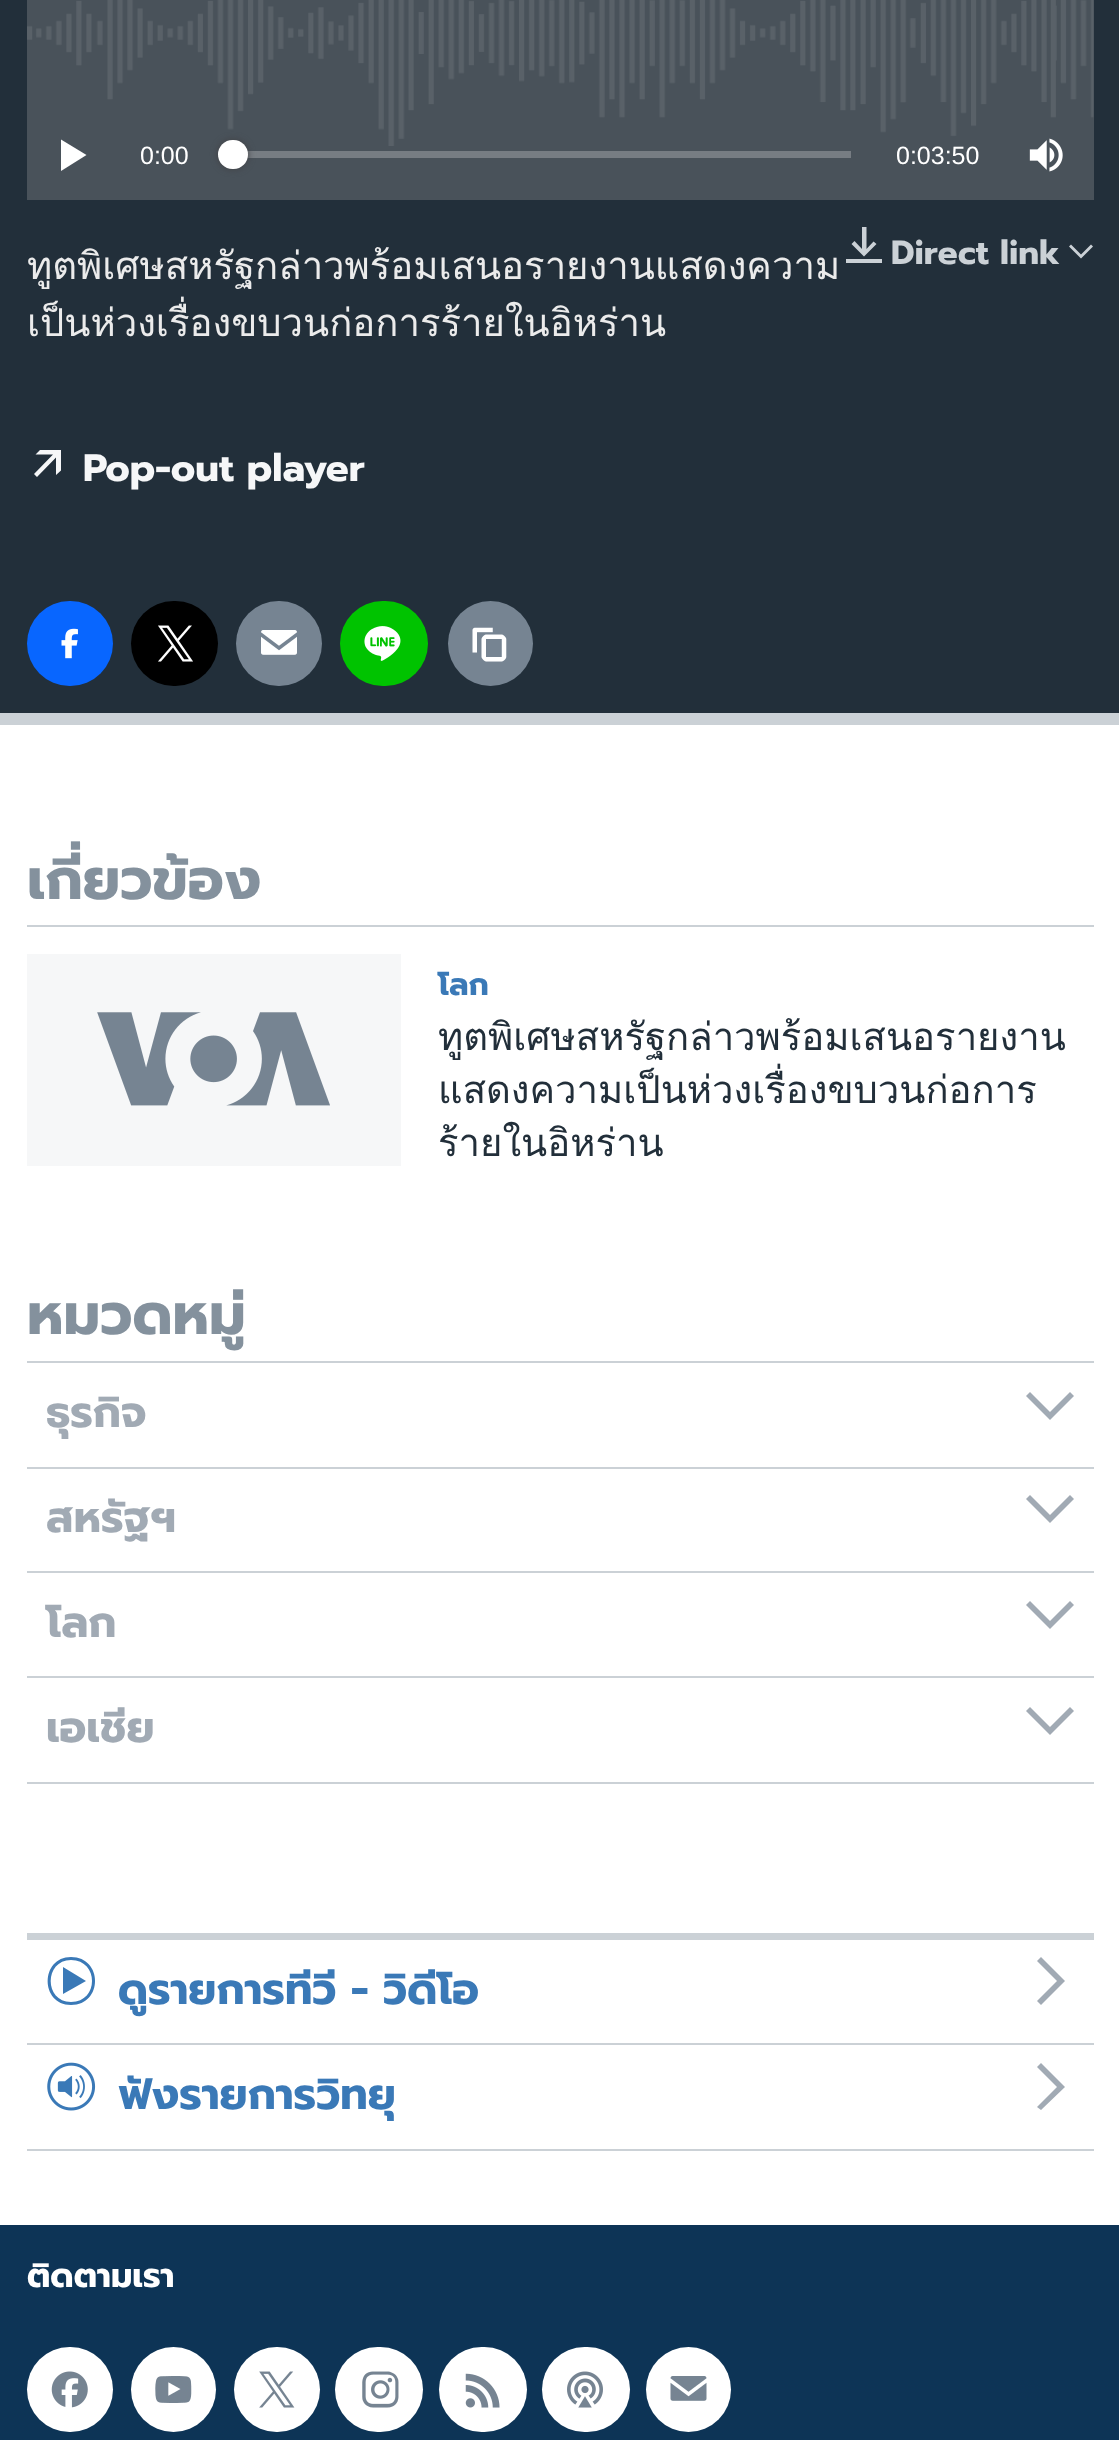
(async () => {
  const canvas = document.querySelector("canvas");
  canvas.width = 1119;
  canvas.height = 2440;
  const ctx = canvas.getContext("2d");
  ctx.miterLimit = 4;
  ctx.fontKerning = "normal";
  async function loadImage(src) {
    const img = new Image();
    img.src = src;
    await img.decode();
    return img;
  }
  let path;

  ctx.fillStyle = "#ffffff";
  ctx.fillRect(0, 0, 1119, 2440);
  for (const [x, y, w, h, color] of [
    [0, 0, 1119, 713, "#222f3a"],
    [0, 713, 1119, 12, "#cbd1d6"],
    [27, 0, 1067, 200, "#49525a"],
  ]) {
    ctx.fillStyle = color;
    ctx.fillRect(x, y, w, h);
  }
  ctx.drawImage(await loadImage("img/1.png"), 27, 0, 1067, 146);
  ctx.fillStyle = "#ffffff";
  path = new Path2D("M61 171L86.5 155L61 139.5Z");
  ctx.fill(path);
  ctx.fillStyle = "#777d83";
  ctx.fillRect(247, 151, 604, 7);
  ctx.fillStyle = "#414144";
  ctx.filter = "blur(3.5px)";
  ctx.beginPath();
  ctx.roundRect(218, 140, 30, 29, 14.5);
  ctx.fill();
  ctx.filter = "none";
  ctx.fillStyle = "#ffffff";
  ctx.beginPath();
  ctx.roundRect(218, 140, 30, 29, 14.5);
  ctx.fill();
  ctx.drawImage(await loadImage("img/2.png"), 1029, 138, 34, 34);
  ctx.fillStyle = "#cbd1d6";
  path = new Path2D("M882 259V263H846V259ZM876.5 244L873.5 241.5L866.5 249V227H862V249L854.5 241L851.5 244L864 256.5Z");
  ctx.fill(path);
  path = new Path2D("M1069 246.5L1081 258.5L1093 246.5L1091 244.5L1081 254.5L1071 244.5Z");
  ctx.fill(path);
  ctx.fillStyle = "#f6f7f8";
  path = new Path2D("M61 450H40L35.5 454.5H53L34 474L37 477L56 457.5V475L61 470.5Z");
  ctx.fill(path);
  ctx.fillStyle = "#0866ff";
  ctx.beginPath();
  ctx.roundRect(27, 601, 86, 85, 42.5);
  ctx.fill();
  ctx.drawImage(await loadImage("img/3.png"), 61, 628, 17, 31);
  ctx.fillStyle = "#000000";
  ctx.beginPath();
  ctx.roundRect(131, 601, 87, 85, 42.5);
  ctx.fill();
  ctx.drawImage(await loadImage("img/4.png"), 158, 625, 35, 37);
  ctx.fillStyle = "#768492";
  ctx.beginPath();
  ctx.roundRect(236, 601, 86, 85, 42.5);
  ctx.fill();
  ctx.drawImage(await loadImage("img/5.png"), 261, 630, 36, 25);
  ctx.fillStyle = "#00c300";
  ctx.beginPath();
  ctx.roundRect(340, 601, 88, 85, 42.5);
  ctx.fill();
  ctx.drawImage(await loadImage("img/6.png"), 364, 626, 37, 35);
  ctx.fillStyle = "#768492";
  ctx.beginPath();
  ctx.arc(490.5, 643.5, 42.5, 0, Math.PI * 2);
  ctx.fill();
  ctx.drawImage(await loadImage("img/7.png"), 472, 627, 35, 35);
  ctx.fillStyle = "#cbd1d6";
  ctx.fillRect(27, 925, 1067, 2);
  ctx.fillStyle = "#f6f7f8";
  ctx.fillRect(27, 954, 374, 212);
  ctx.drawImage(await loadImage("img/8.png"), 97, 1012, 233, 94);
  ctx.fillStyle = "#cbd1d6";
  ctx.fillRect(27, 1361, 1067, 2);
  ctx.fillRect(27, 1467, 1067, 2);
  ctx.fillStyle = "#a1aab4";
  path = new Path2D("M1026 1396L1050 1420L1074 1396L1070 1392L1050 1412L1030 1392Z");
  ctx.fill(path);
  ctx.fillStyle = "#cbd1d6";
  ctx.fillRect(27, 1571, 1067, 2);
  ctx.fillStyle = "#a1aab4";
  path = new Path2D("M1026 1499L1050 1523L1074 1499L1070 1495L1050 1515L1030 1495Z");
  ctx.fill(path);
  ctx.fillStyle = "#cbd1d6";
  ctx.fillRect(27, 1676, 1067, 2);
  ctx.fillStyle = "#a1aab4";
  path = new Path2D("M1026 1605L1050 1629L1074 1605L1070 1601L1050 1621L1030 1601Z");
  ctx.fill(path);
  ctx.fillStyle = "#cbd1d6";
  ctx.fillRect(27, 1782, 1067, 2);
  ctx.fillStyle = "#a1aab4";
  path = new Path2D("M1026 1711L1050 1735L1074 1711L1070 1707L1050 1727L1030 1707Z");
  ctx.fill(path);
  ctx.fillStyle = "#cbd1d6";
  ctx.fillRect(27, 1933, 1067, 7);
  ctx.fillRect(27, 2043, 1067, 2);
  ctx.fillStyle = "#3a79b7";
  path = new Path2D("M63 1994L86 1981L63 1967ZM71 1960C99 1960 99 2002 71 2002C44 2002 44 1960 71 1960ZM71 1957C40 1957 40 2005 71 2005C103 2005 103 1957 71 1957Z");
  ctx.fill(path);
  ctx.fillStyle = "#a1aab4";
  path = new Path2D("M1041 2005L1065 1981L1041 1957L1037 1961L1057 1981L1037 2001Z");
  ctx.fill(path);
  ctx.fillStyle = "#cbd1d6";
  ctx.fillRect(27, 2149, 1067, 2);
  ctx.drawImage(await loadImage("img/9.png"), 47, 2062, 49, 49);
  ctx.fillStyle = "#a1aab4";
  path = new Path2D("M1041 2110L1065 2087L1041 2063L1037 2067L1057 2087L1037 2107Z");
  ctx.fill(path);
  ctx.fillStyle = "#0d3456";
  ctx.fillRect(0, 2225, 1119, 215);
  ctx.fillStyle = "#ffffff";
  ctx.beginPath();
  ctx.roundRect(27, 2347, 86, 85, 42.5);
  ctx.fill();
  ctx.drawImage(await loadImage("img/10.png"), 51, 2371, 37, 37);
  ctx.beginPath();
  ctx.arc(173.5, 2389.5, 42.5, 0, Math.PI * 2);
  ctx.fill();
  ctx.drawImage(await loadImage("img/11.png"), 155, 2376, 37, 27);
  ctx.beginPath();
  ctx.roundRect(234, 2347, 86, 85, 42.5);
  ctx.fill();
  ctx.drawImage(await loadImage("img/12.png"), 259, 2371, 36, 37);
  ctx.beginPath();
  ctx.roundRect(335, 2347, 88, 85, 42.5);
  ctx.fill();
  ctx.drawImage(await loadImage("img/13.png"), 362, 2371, 37, 37);
  ctx.beginPath();
  ctx.roundRect(439, 2347, 88, 85, 42.5);
  ctx.fill();
  ctx.drawImage(await loadImage("img/14.png"), 465, 2373, 35, 35);
  ctx.beginPath();
  ctx.roundRect(542, 2347, 88, 85, 42.5);
  ctx.fill();
  ctx.drawImage(await loadImage("img/15.png"), 567, 2371, 36, 37);
  ctx.beginPath();
  ctx.arc(688.5, 2389.5, 42.5, 0, Math.PI * 2);
  ctx.fill();
  ctx.drawImage(await loadImage("img/16.png"), 670, 2376, 37, 25);
  ctx.font = "25px Liberation Sans";
  ctx.fillText("0:00", 140, 164);
  ctx.fillText("0:03:50", 896, 164);
  ctx.font = "38.25px Loma";
  ctx.fillStyle = "#ebebeb";
  ctx.fillText("ทูตพิเศษสหรัฐกล่าวพร้อมเสนอรายงานแสดงความ", 27, 279);
  ctx.fillText("เป็นห่วงเรื่องขบวนก่อการร้ายในอิหร่าน", 27, 336);
  ctx.font = "bold 33.5px Prompt";
  ctx.fillStyle = "#cbd1d6";
  ctx.fillText("Direct link", 891, 264);
  ctx.font = "bold 38.25px Prompt";
  ctx.fillStyle = "#f6f7f8";
  ctx.fillText("Pop-out player", 83, 481);
  ctx.font = "bold 57.5px Prompt";
  ctx.fillStyle = "#84919d";
  ctx.fillText("เกี่ยวข้อง", 27, 899);
  ctx.font = "bold 31px Prompt";
  ctx.fillStyle = "#3a79b7";
  ctx.fillText("โลก", 438, 995);
  ctx.font = "38.25px Loma";
  ctx.fillStyle = "#222f3a";
  for (const [text, x, y] of [
    ["ทูตพิเศษสหรัฐกล่าวพร้อมเสนอรายงาน", 438, 1050],
    ["แสดงความเป็นห่วงเรื่องขบวนก่อการ", 438, 1103],
    ["ร้ายในอิหร่าน", 438, 1156],
  ]) {
    ctx.fillText(text, x, y);
  }
  ctx.font = "bold 57.5px Prompt";
  ctx.fillStyle = "#84919d";
  ctx.fillText("หมวดหมู่", 27, 1334);
  ctx.font = "bold 43px Prompt";
  ctx.fillStyle = "#a1aab4";
  for (const [text, x, y] of [
    ["ธุรกิจ", 46, 1427],
    ["สหรัฐฯ", 46, 1532],
    ["โลก", 46, 1637],
    ["เอเชีย", 46, 1742],
  ]) {
    ctx.fillText(text, x, y);
  }
  ctx.fillStyle = "#3a79b7";
  ctx.fillText("ดูรายการทีวี - วิดีโอ", 118, 2004);
  ctx.fillText("ฟังรายการวิทยุ", 118, 2109);
  ctx.font = "bold 33.5px Prompt";
  ctx.fillStyle = "#ffffff";
  ctx.fillText("ติดตามเรา", 27, 2287);
})();
